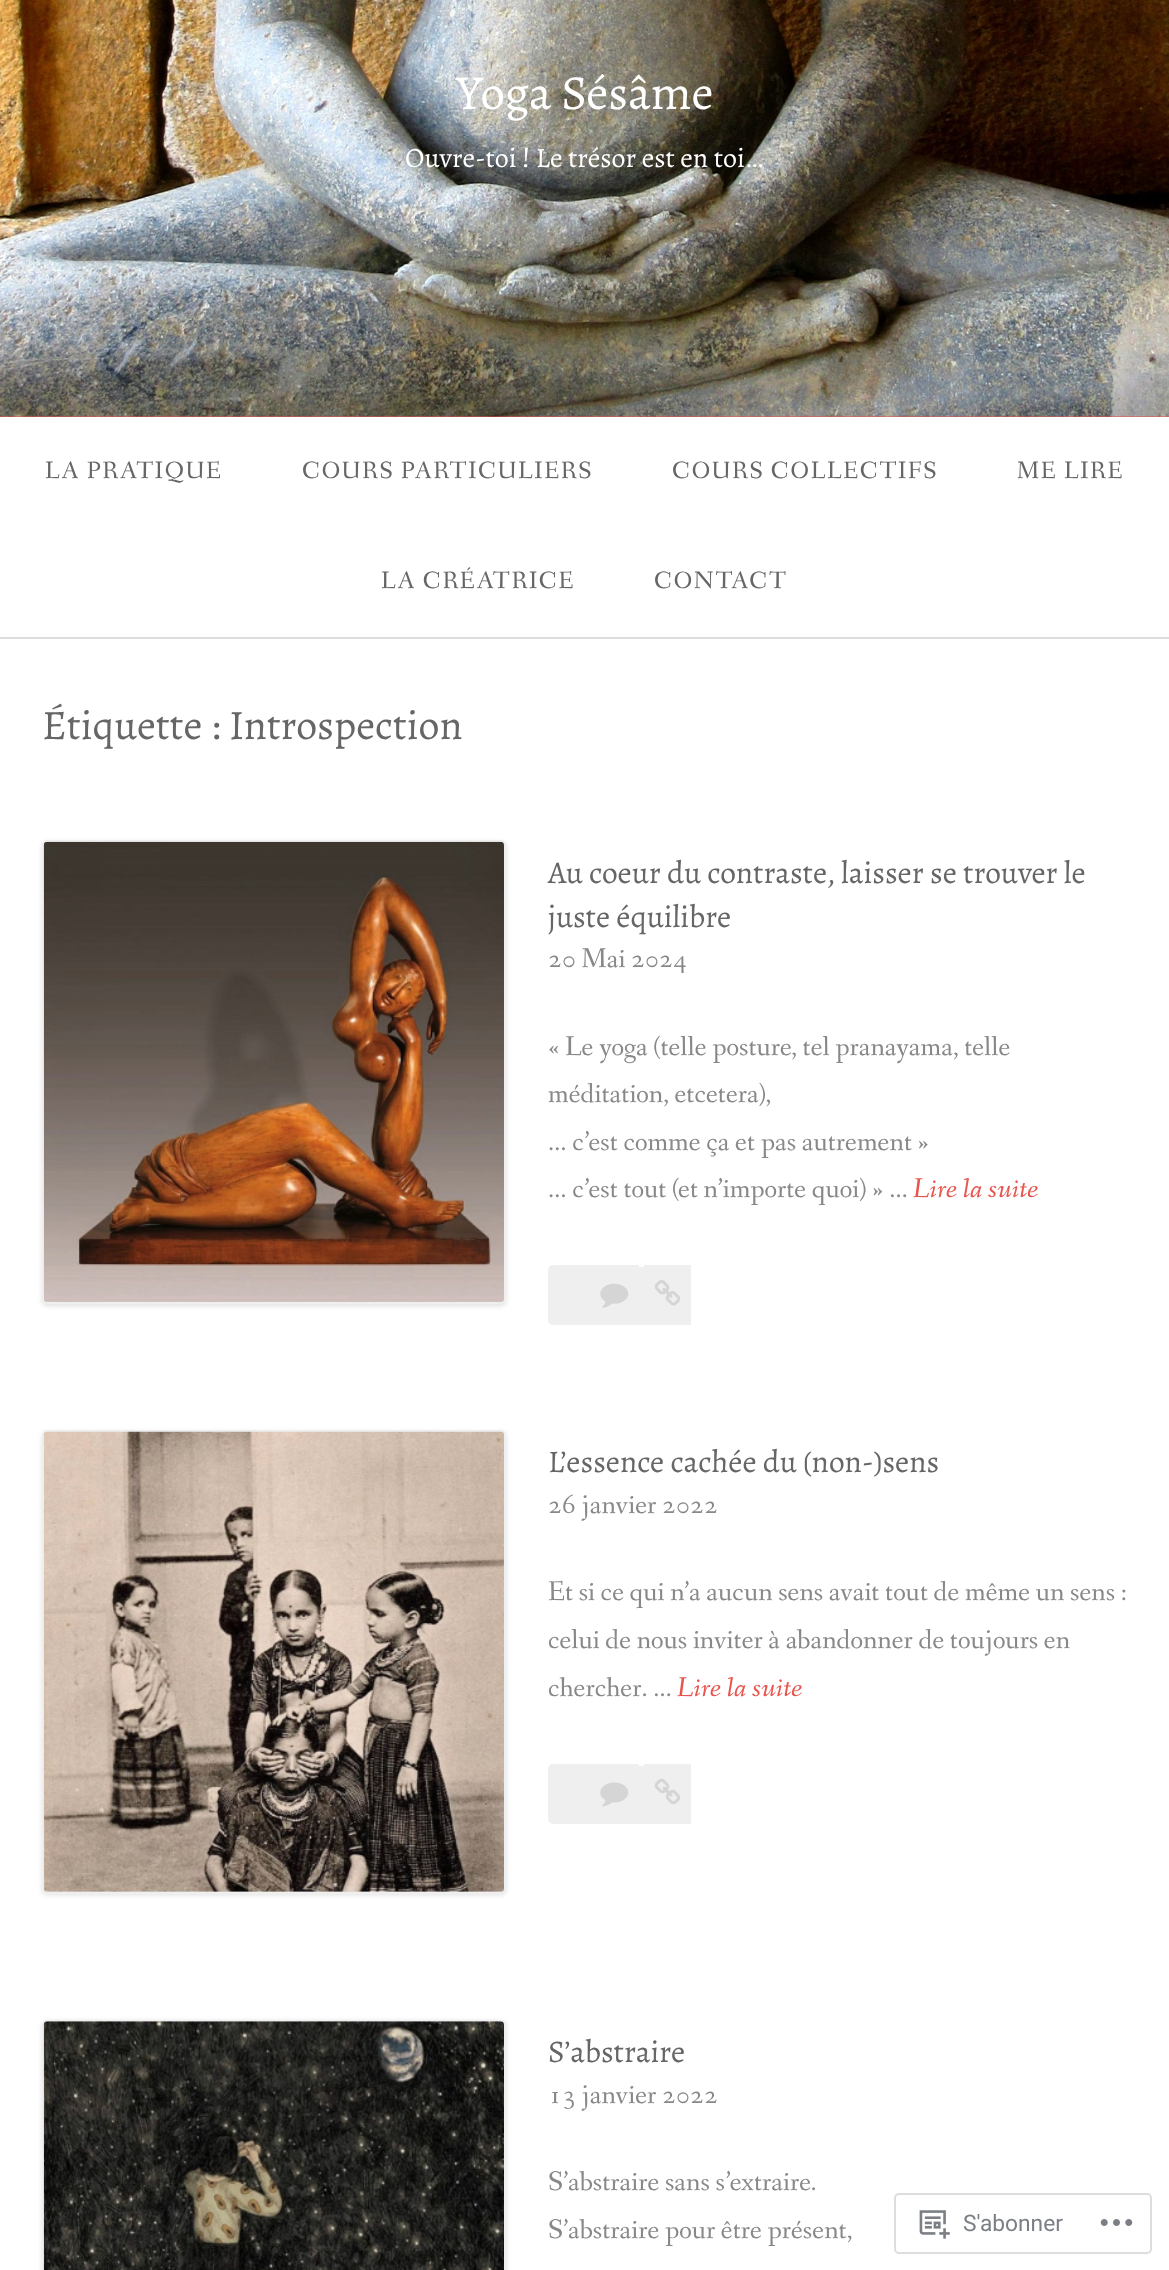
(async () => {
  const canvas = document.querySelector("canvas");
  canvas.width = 1169;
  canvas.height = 2270;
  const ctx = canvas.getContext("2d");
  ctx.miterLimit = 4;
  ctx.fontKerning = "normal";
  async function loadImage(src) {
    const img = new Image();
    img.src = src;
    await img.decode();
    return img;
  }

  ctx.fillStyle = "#ffffff";
  ctx.fillRect(0, 0, 1169, 2270);
  ctx.fillStyle = "#e8554e";
  ctx.fillRect(0, 416, 1169, 1);
  ctx.drawImage(await loadImage("img/1.png"), 0, 0, 1169, 417);
  ctx.fillStyle = "#dddddd";
  ctx.fillRect(0, 637, 1169, 2);
  ctx.fillStyle = "rgba(0, 0, 0, 0.12)";
  ctx.filter = "blur(2.5px)";
  ctx.beginPath();
  ctx.roundRect(42, 842, 464, 464, 5);
  ctx.fill();
  ctx.filter = "none";
  ctx.beginPath();
  ctx.roundRect(43, 841, 462, 462, 4);
  ctx.strokeStyle = "#efefef";
  ctx.lineWidth = 2;
  ctx.stroke();
  ctx.drawImage(await loadImage("img/2.png"), 43, 841, 461, 461);
  ctx.fillStyle = "#efefef";
  ctx.beginPath();
  ctx.roundRect(548, 1265, 91, 60, [5, 0, 0, 5]);
  ctx.fill();
  ctx.fillRect(639, 1267, 5, 58);
  ctx.fillRect(644, 1265, 47, 60);
  ctx.drawImage(await loadImage("img/3.png"), 600, 1283, 29, 25);
  ctx.drawImage(await loadImage("img/4.png"), 654, 1280, 27, 26);
  ctx.fillStyle = "rgba(0, 0, 0, 0.12)";
  ctx.filter = "blur(2.5px)";
  ctx.beginPath();
  ctx.roundRect(42, 1432, 464, 463, 5);
  ctx.fill();
  ctx.filter = "none";
  ctx.beginPath();
  ctx.roundRect(43, 1431, 462, 462, 4);
  ctx.stroke();
  ctx.drawImage(await loadImage("img/5.png"), 43, 1431, 461, 461);
  ctx.fillStyle = "#efefef";
  ctx.beginPath();
  ctx.roundRect(548, 1764, 91, 60, [5, 0, 0, 5]);
  ctx.fill();
  ctx.fillRect(639, 1766, 5, 58);
  ctx.fillRect(644, 1764, 47, 60);
  ctx.drawImage(await loadImage("img/6.png"), 600, 1782, 29, 25);
  ctx.drawImage(await loadImage("img/7.png"), 654, 1778, 27, 27);
  ctx.fillStyle = "rgba(0, 0, 0, 0.12)";
  ctx.filter = "blur(2.5px)";
  ctx.beginPath();
  ctx.roundRect(42, 2021, 464, 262, 5);
  ctx.fill();
  ctx.filter = "none";
  ctx.beginPath();
  ctx.roundRect(43, 2021, 462, 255, 4);
  ctx.stroke();
  ctx.drawImage(await loadImage("img/8.png"), 43, 2021, 461, 249);
  ctx.beginPath();
  ctx.roundRect(895, 2194, 256, 59, 4);
  ctx.strokeStyle = "#dddddf";
  ctx.stroke();
  ctx.drawImage(await loadImage("img/9.png"), 919, 2210, 31, 29);
  ctx.drawImage(await loadImage("img/10.png"), 1100, 2219, 33, 7);
  ctx.font = "49px Alegreya";
  ctx.fillStyle = "#ffffff";
  ctx.fillText("Yoga Sésâme", 456, 109);
  ctx.font = "28px Alegreya";
  ctx.fillText("Ouvre-toi ! Le trésor est en toi…", 405, 167);
  ctx.letterSpacing = "1.75px";
  ctx.font = "24.5px Fanwood Text";
  ctx.fillStyle = "#666666";
  for (const [text, x, y] of [
    ["LA PRATIQUE", 45, 478],
    ["COURS PARTICULIERS", 302, 478],
    ["COURS COLLECTIFS", 672, 478],
    ["ME LIRE", 1017, 478],
    ["LA CRÉATRICE", 381, 588],
    ["CONTACT", 654, 588],
  ]) {
    ctx.fillText(text, x, y);
  }
  ctx.letterSpacing = "0px";
  ctx.font = "42px Alegreya";
  ctx.fillText("Étiquette : Introspection", 42, 739);
  ctx.font = "31.5px Alegreya";
  ctx.fillText("Au coeur du contraste, laisser se trouver le", 548, 883);
  ctx.fillText("juste équilibre", 548, 927);
  ctx.font = "28px Fanwood Text";
  ctx.fillStyle = "#888888";
  for (const [text, x, y] of [
    ["20 Mai 2024", 548, 967],
    ["« Le yoga (telle posture, tel pranayama, telle", 548, 1055],
    ["méditation, etcetera),", 548, 1102],
    ["… c’est comme ça et pas autrement »", 548, 1150],
    ["… c’est tout (et n’importe quoi) » …", 548, 1197],
  ]) {
    ctx.fillText(text, x, y);
  }
  ctx.font = "italic 28px Fanwood Text";
  ctx.fillStyle = "#e8554e";
  ctx.fillText("Lire la suite", 913, 1197);
  ctx.font = "31.5px Alegreya";
  ctx.fillStyle = "#666666";
  ctx.fillText("L’essence cachée du (non-)sens", 548, 1472);
  ctx.font = "28px Fanwood Text";
  ctx.fillStyle = "#888888";
  for (const [text, x, y] of [
    ["26 janvier 2022", 548, 1513],
    ["Et si ce qui n’a aucun sens avait tout de même un sens :", 548, 1600],
    ["celui de nous inviter à abandonner de toujours en", 548, 1648],
    ["chercher. …", 548, 1696],
  ]) {
    ctx.fillText(text, x, y);
  }
  ctx.font = "italic 28px Fanwood Text";
  ctx.fillStyle = "#e8554e";
  ctx.fillText("Lire la suite", 677, 1696);
  ctx.font = "31.5px Alegreya";
  ctx.fillStyle = "#666666";
  ctx.fillText("S’abstraire", 548, 2062);
  ctx.font = "28px Fanwood Text";
  ctx.fillStyle = "#888888";
  for (const [text, x, y] of [
    ["13 janvier 2022", 548, 2103],
    ["S’abstraire sans s’extraire.", 548, 2190],
    ["S’abstraire pour être présent,", 548, 2238],
  ]) {
    ctx.fillText(text, x, y);
  }
  ctx.font = "22.75px Roboto";
  ctx.fillStyle = "#7b7f85";
  ctx.fillText("S'abonner", 963, 2231);
})();
